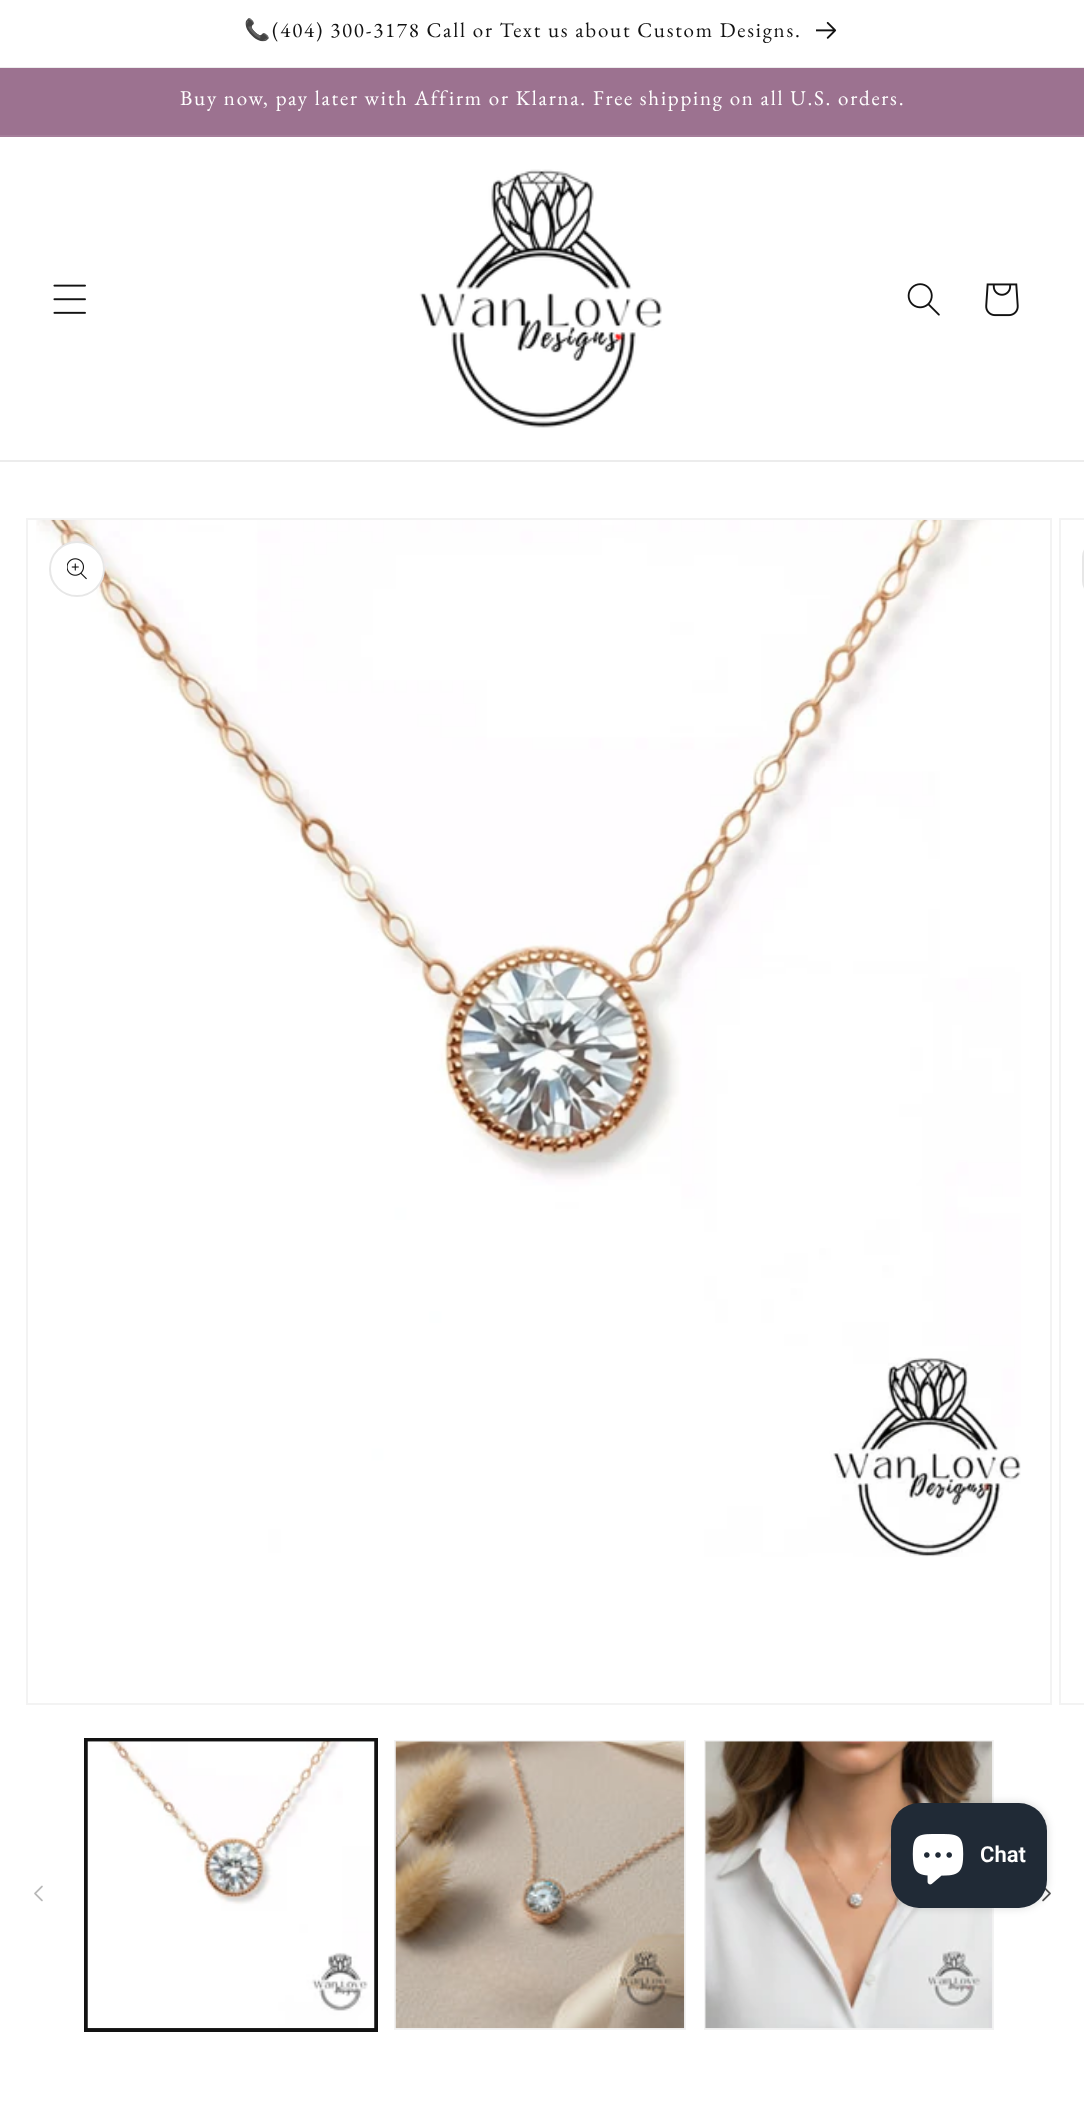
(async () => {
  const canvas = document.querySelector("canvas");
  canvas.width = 1084;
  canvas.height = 2126;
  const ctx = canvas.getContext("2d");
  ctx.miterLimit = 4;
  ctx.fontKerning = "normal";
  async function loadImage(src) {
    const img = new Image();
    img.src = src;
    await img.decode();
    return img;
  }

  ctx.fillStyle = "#ffffff";
  ctx.fillRect(0, 0, 1084, 2126);
  ctx.fillStyle = "#ececec";
  ctx.fillRect(0, 67, 1084, 1);
  ctx.drawImage(await loadImage("img/1.png"), 816, 21, 21, 18);
  for (const [x, y, w, h, color] of [
    [0, 68, 1084, 67, "#9c7290"],
    [0, 135, 1084, 2, "#a47d99"],
    [0, 460, 1084, 2, "#ececec"],
  ]) {
    ctx.fillStyle = color;
    ctx.fillRect(x, y, w, h);
  }
  ctx.drawImage(await loadImage("img/2.png"), 53, 284, 33, 30);
  ctx.drawImage(await loadImage("img/3.png"), 419, 169, 243, 259);
  ctx.drawImage(await loadImage("img/4.png"), 907, 283, 33, 33);
  ctx.drawImage(await loadImage("img/5.png"), 985, 283, 34, 34);
  ctx.strokeStyle = "#f3f3f3";
  ctx.lineWidth = 2;
  ctx.strokeRect(27, 519, 1024, 1185);
  ctx.drawImage(await loadImage("img/6.png"), 36, 519, 985, 1038);
  ctx.fillStyle = "#ffffff";
  ctx.beginPath();
  ctx.arc(77, 569, 28, 0, Math.PI * 2);
  ctx.fill();
  ctx.beginPath();
  ctx.arc(77, 569, 27, 0, Math.PI * 2);
  ctx.strokeStyle = "rgba(18, 18, 18, 0.1)";
  ctx.stroke();
  ctx.drawImage(await loadImage("img/7.png"), 67, 558, 20, 22);
  ctx.strokeStyle = "#f3f3f3";
  ctx.strokeRect(1060, 519, 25, 1185);
  ctx.beginPath();
  ctx.roundRect(1083, 542, 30, 54, 27);
  ctx.strokeStyle = "#e7e7e7";
  ctx.stroke();
  ctx.drawImage(await loadImage("img/8.png"), 34, 1885, 9, 17);
  ctx.strokeStyle = "#121212";
  ctx.strokeRect(85, 1739, 292, 292);
  ctx.strokeRect(87, 1741, 288, 288);
  ctx.drawImage(await loadImage("img/9.png"), 87, 1741, 288, 288);
  ctx.strokeStyle = "#f3f3f3";
  ctx.strokeRect(395, 1741, 290, 288);
  ctx.drawImage(await loadImage("img/10.png"), 395, 1741, 290, 288);
  ctx.strokeRect(705, 1741, 288, 288);
  ctx.drawImage(await loadImage("img/11.png"), 705, 1741, 288, 288);
  ctx.drawImage(await loadImage("img/12.png"), 1042, 1887, 9, 15);
  ctx.fillStyle = "rgba(0, 0, 0, 0.15)";
  ctx.filter = "blur(4.5px)";
  ctx.beginPath();
  ctx.roundRect(891, 1803, 156, 105, 28);
  ctx.fill();
  ctx.filter = "none";
  ctx.fillStyle = "#202a36";
  ctx.beginPath();
  ctx.roundRect(891, 1803, 156, 105, 28);
  ctx.fill();
  ctx.drawImage(await loadImage("img/13.png"), 912, 1834, 52, 51);
  ctx.letterSpacing = "1.75px";
  ctx.font = "21px Noto Color Emoji";
  ctx.fillStyle = "#121212";
  ctx.fillText("📞", 244, 37);
  ctx.font = "21px EB Garamond";
  ctx.fillText("(404) 300-3178 Call or Text us about Custom Designs.", 272, 37);
  ctx.fillStyle = "#ffffff";
  ctx.fillText("Buy now, pay later with Affirm or Klarna. Free shipping on all U.S. orders.", 180, 105);
  ctx.letterSpacing = "0px";
  ctx.font = "600 22px Roboto";
  ctx.fillText("Chat", 980, 1862);
})();
